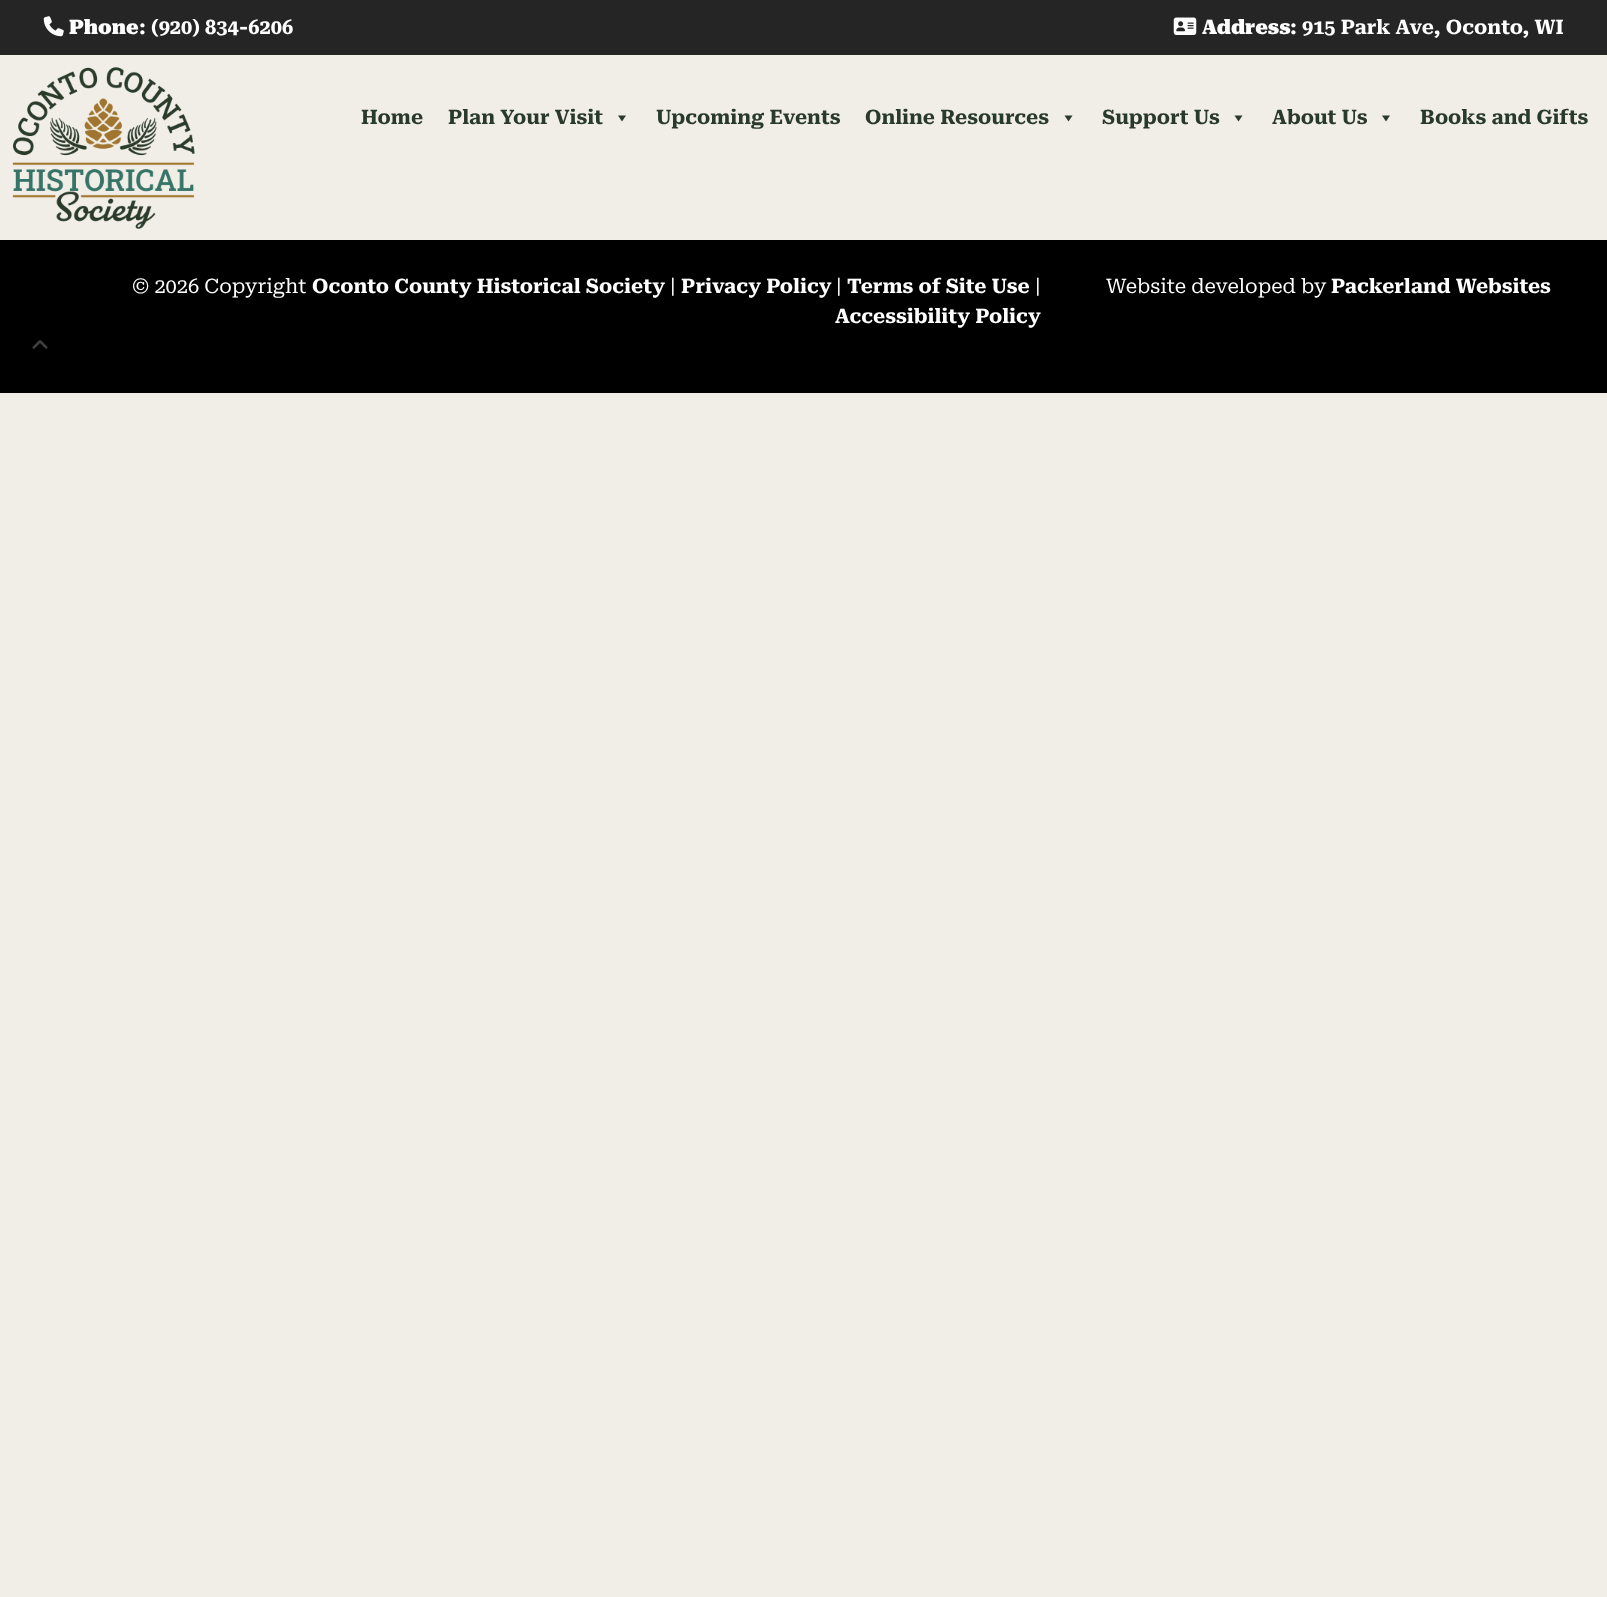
(async () => {
  const canvas = document.querySelector("canvas");
  canvas.width = 1607;
  canvas.height = 1597;
  const ctx = canvas.getContext("2d");
  ctx.miterLimit = 4;
  ctx.fontKerning = "normal";
  async function loadImage(src) {
    const img = new Image();
    img.src = src;
    await img.decode();
    return img;
  }
  let path;

  ctx.fillStyle = "#f1eee8";
  ctx.fillRect(0, 0, 1607, 1597);
  ctx.fillStyle = "#252525";
  ctx.fillRect(0, 0, 1607, 55);
  ctx.drawImage(await loadImage("img/1.png"), 43, 16, 21, 21);
  ctx.drawImage(await loadImage("img/2.png"), 1173, 17, 24, 18);
  ctx.drawImage(await loadImage("img/3.png"), 12, 67, 183, 162);
  ctx.fillStyle = "#2a3a2a";
  path = new Path2D("M626 115.5L622 121.5L618 115.5Z");
  ctx.fill(path);
  path = new Path2D("M1072.5 115.5L1068.5 121.5L1064.5 115.5Z");
  ctx.fill(path);
  path = new Path2D("M1242.5 115.5L1238.5 121.5L1234.5 115.5Z");
  ctx.fill(path);
  path = new Path2D("M1390 115.5L1386 121.5L1382 115.5Z");
  ctx.fill(path);
  ctx.fillStyle = "#000000";
  ctx.fillRect(0, 240, 1607, 153);
  ctx.drawImage(await loadImage("img/4.png"), 32, 340, 16, 9);
  ctx.font = "900 20px Roboto Serif";
  ctx.fillStyle = "#ffffff";
  ctx.fillText("Phone", 69, 34);
  ctx.font = "bold 20px Roboto Serif";
  ctx.fillText(": (920) 834-6206", 139, 34);
  ctx.font = "900 20px Roboto Serif";
  ctx.fillText("Address", 1202, 34);
  ctx.font = "bold 20px Roboto Serif";
  ctx.fillText(": 915 Park Ave, Oconto, WI", 1290, 34);
  ctx.fillStyle = "#2a3a2a";
  for (const [text, x, y] of [
    ["Home", 361, 124],
    ["Plan Your Visit", 448, 124],
    ["Upcoming Events", 656, 124],
    ["Online Resources", 865, 124],
    ["Support Us", 1102, 124],
    ["About Us", 1272, 124],
    ["Books and Gifts", 1420, 124],
  ]) {
    ctx.fillText(text, x, y);
  }
  ctx.font = "20px Roboto Serif";
  ctx.fillStyle = "#ffffff";
  ctx.fillText("© 2026 Copyright", 132, 293);
  ctx.font = "bold 20px Roboto Serif";
  ctx.fillText("Oconto County Historical Society", 312, 293);
  ctx.font = "20px Roboto Serif";
  ctx.fillText("|", 670, 293);
  ctx.font = "bold 20px Roboto Serif";
  ctx.fillText("Privacy Policy", 681, 293);
  ctx.font = "20px Roboto Serif";
  ctx.fillText("|", 836, 293);
  ctx.font = "bold 20px Roboto Serif";
  ctx.fillText("Terms of Site Use", 847, 293);
  ctx.font = "20px Roboto Serif";
  ctx.fillText("|", 1035, 293);
  ctx.font = "bold 20px Roboto Serif";
  ctx.fillText("Accessibility Policy", 835, 323);
  ctx.font = "20px Roboto Serif";
  ctx.fillText("Website developed by", 1106, 293);
  ctx.font = "bold 20px Roboto Serif";
  ctx.fillText("Packerland Websites", 1331, 293);
})();
